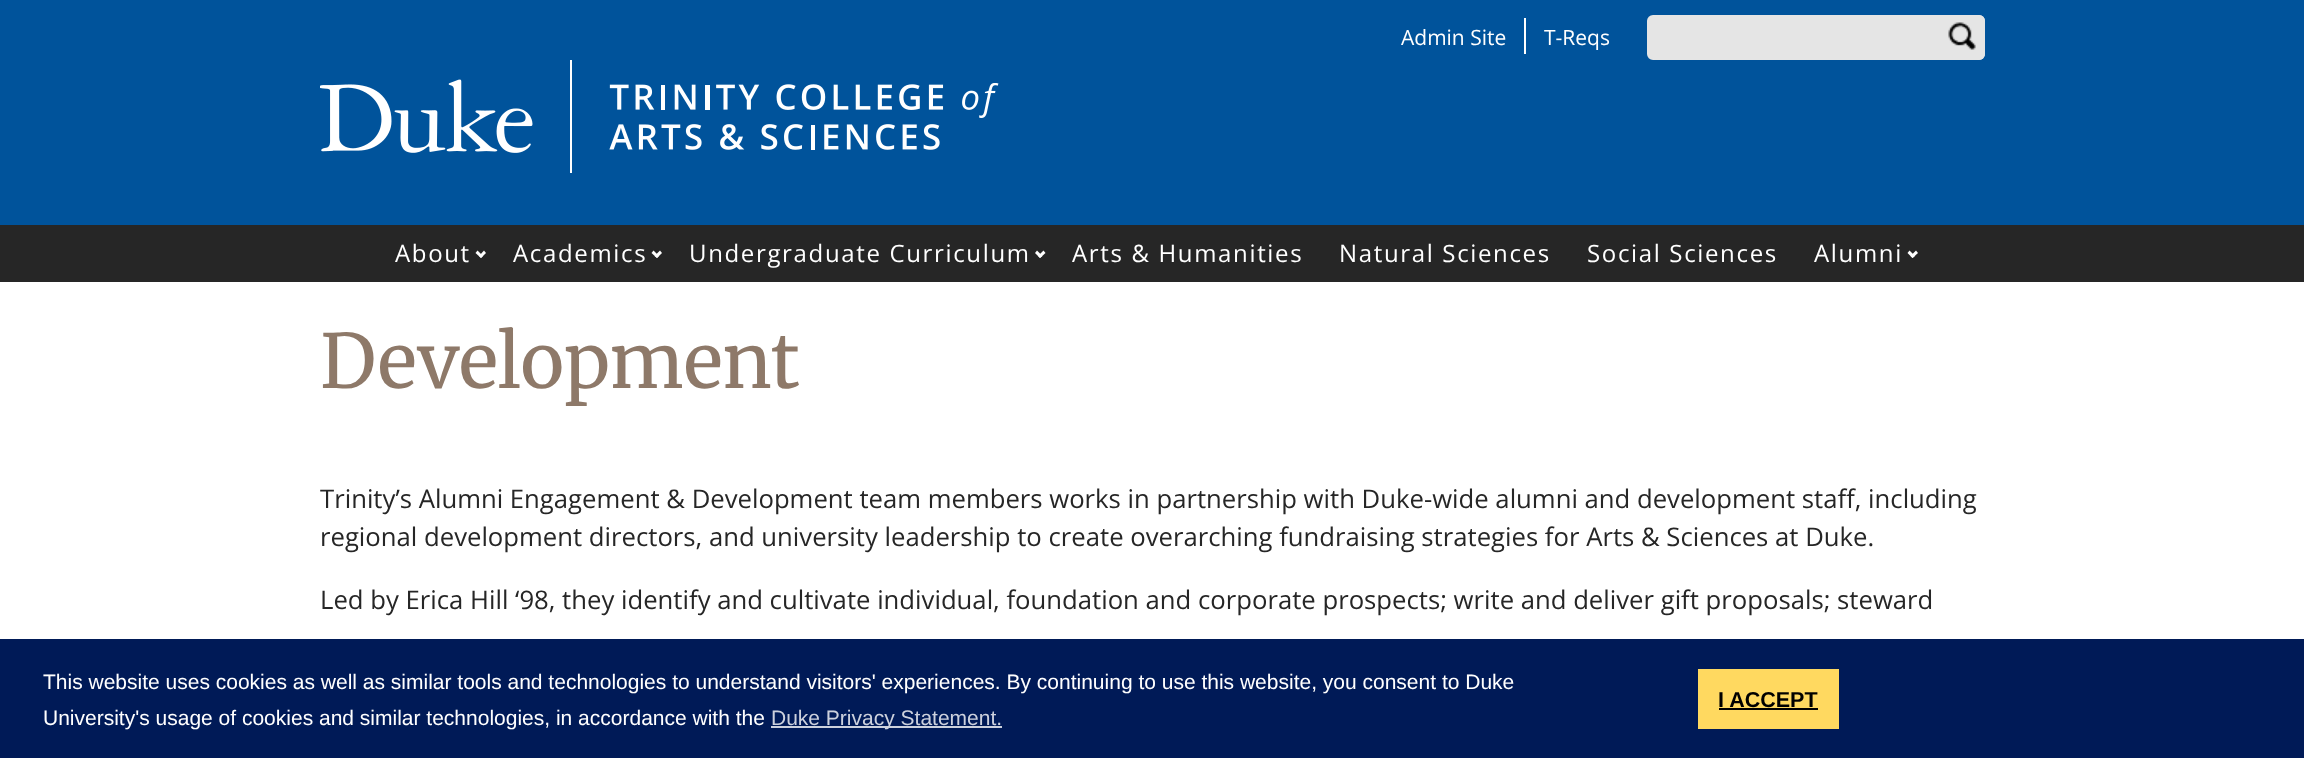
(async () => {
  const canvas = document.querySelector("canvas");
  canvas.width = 2304;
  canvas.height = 758;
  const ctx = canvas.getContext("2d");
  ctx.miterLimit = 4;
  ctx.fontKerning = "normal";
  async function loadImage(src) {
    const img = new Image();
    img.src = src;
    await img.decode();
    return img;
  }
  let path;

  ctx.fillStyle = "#ffffff";
  ctx.fillRect(0, 0, 2304, 758);
  ctx.fillStyle = "#00539b";
  ctx.fillRect(0, 0, 2304, 225);
  ctx.fillStyle = "#ffffff";
  ctx.fillRect(1524, 18, 2, 36);
  ctx.fillStyle = "#e5e5e5";
  ctx.beginPath();
  ctx.roundRect(1648, 16, 298, 43, [5, 0, 0, 5]);
  ctx.fill();
  ctx.strokeStyle = "#e5e5e5";
  ctx.lineWidth = 2;
  ctx.stroke();
  ctx.beginPath();
  ctx.roundRect(1940, 15, 45, 45, [0, 6, 6, 0]);
  ctx.fill();
  ctx.drawImage(await loadImage("img/1.png"), 1948, 22, 28, 28);
  ctx.beginPath();
  ctx.roundRect(1941, 16, 43, 43, [0, 5, 5, 0]);
  ctx.stroke();
  ctx.fillStyle = "#ffffff";
  ctx.fillRect(570, 60, 2, 113);
  ctx.drawImage(await loadImage("img/2.png"), 320, 79, 213, 74);
  ctx.drawImage(await loadImage("img/3.png"), 609, 83, 390, 67);
  ctx.fillStyle = "#262626";
  ctx.fillRect(0, 225, 2304, 57);
  ctx.fillStyle = "#ffffff";
  path = new Path2D("M484 250.5L486 253L481 258L479 256Z");
  ctx.fill(path);
  path = new Path2D("M477.5 250.5L483 256L481 258L475.5 253Z");
  ctx.fill(path);
  path = new Path2D("M660 250.5L662 253L657 258L654.5 256Z");
  ctx.fill(path);
  path = new Path2D("M653.5 250.5L659 256L657 258L651.5 253Z");
  ctx.fill(path);
  path = new Path2D("M1043.5 250.5L1045.5 253L1040 258L1038 256Z");
  ctx.fill(path);
  path = new Path2D("M1037 250.5L1042.5 256L1040 258L1035 253Z");
  ctx.fill(path);
  path = new Path2D("M1916 250.5L1918 253L1912.5 258L1910.5 256Z");
  ctx.fill(path);
  path = new Path2D("M1909.5 250.5L1915 256L1912.5 258L1907.5 253Z");
  ctx.fill(path);
  for (const [x, y, w, h, color] of [
    [0, 639, 2304, 119, "#001a57"],
    [771, 726, 231, 2, "#ccd1dd"],
    [1698, 669, 141, 60, "#ffd960"],
    [1719, 708, 99, 2, "#000000"],
  ]) {
    ctx.fillStyle = color;
    ctx.fillRect(x, y, w, h);
  }
  ctx.font = "21px Open Sans";
  ctx.fillStyle = "#ffffff";
  ctx.fillText("Admin Site", 1401, 45);
  ctx.fillText("T-Reqs", 1544, 45);
  ctx.letterSpacing = "1.65px";
  ctx.font = "24px Open Sans";
  for (const [text, x, y] of [
    ["About", 395, 262],
    ["Academics", 513, 262],
    ["Undergraduate Curriculum", 689, 262],
    ["Arts & Humanities", 1072, 262],
    ["Natural Sciences", 1339, 262],
    ["Social Sciences", 1587, 262],
    ["Alumni", 1814, 262],
  ]) {
    ctx.fillText(text, x, y);
  }
  ctx.letterSpacing = "0px";
  ctx.font = "74.5px Merriweather";
  ctx.fillStyle = "#8e7969";
  ctx.fillText("Development", 320, 388);
  ctx.font = "25.7px Open Sans";
  ctx.fillStyle = "#262626";
  for (const [text, x, y] of [
    ["Trinity’s Alumni Engagement & Development team members works in partnership with Duke-wide alumni and development staff, including", 320, 508],
    ["regional development directors, and university leadership to create overarching fundraising strategies for Arts & Sciences at Duke.", 320, 546],
    ["Led by Erica Hill ‘98, they identify and cultivate individual, foundation and corporate prospects; write and deliver gift proposals; steward", 320, 609],
  ]) {
    ctx.fillText(text, x, y);
  }
  ctx.font = "21px Liberation Sans";
  ctx.fillStyle = "#ffffff";
  ctx.fillText("This website uses cookies as well as similar tools and technologies to understand visitors' experiences. By continuing to use this website, you consent to Duke", 43, 689);
  ctx.fillText("University's usage of cookies and similar technologies, in accordance with the", 43, 725);
  ctx.fillStyle = "#ccd1dd";
  ctx.fillText("Duke Privacy Statement.", 771, 725);
  ctx.font = "bold 21.5px Liberation Sans";
  ctx.fillStyle = "#000000";
  ctx.fillText("I ACCEPT", 1718, 707);
})();
